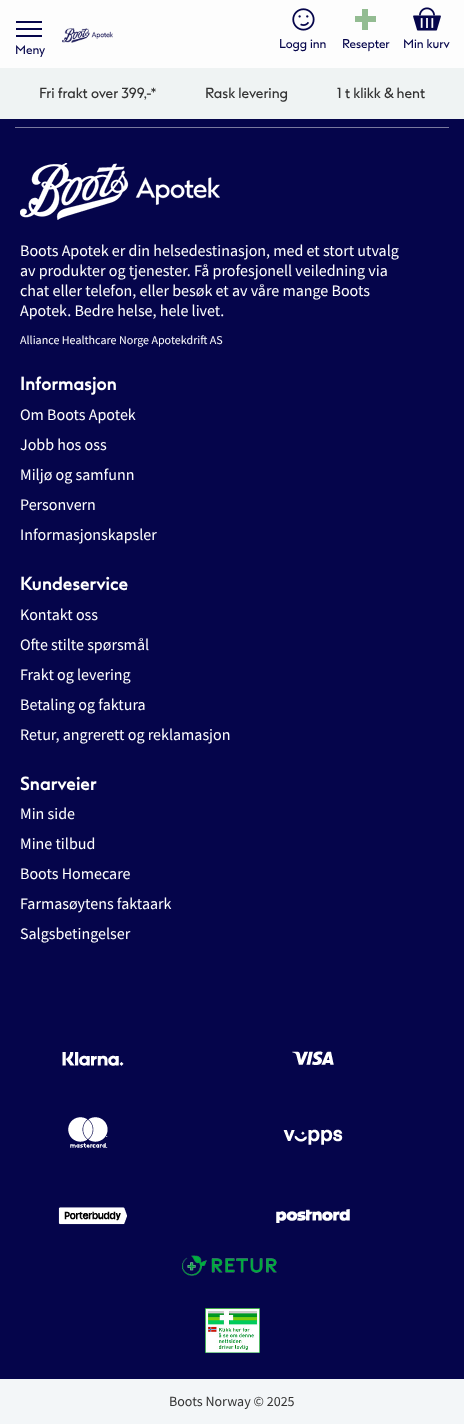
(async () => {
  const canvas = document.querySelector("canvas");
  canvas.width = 464;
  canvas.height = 1424;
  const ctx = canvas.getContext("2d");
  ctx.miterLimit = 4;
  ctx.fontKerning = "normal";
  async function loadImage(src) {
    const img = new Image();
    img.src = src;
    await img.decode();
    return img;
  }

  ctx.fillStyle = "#05054b";
  ctx.fillRect(0, 0, 464, 1424);
  ctx.fillStyle = "#fdfdfd";
  ctx.fillRect(0, 0, 464, 68);
  ctx.drawImage(await loadImage("img/1.png"), 62, 28, 51, 15);
  for (const [x, y, w, h, color] of [
    [16, 21, 26, 2, "#05054b"],
    [16, 28, 26, 2, "#05054b"],
    [16, 35, 26, 2, "#05054b"],
  ]) {
    ctx.fillStyle = color;
    ctx.fillRect(x, y, w, h);
  }
  ctx.drawImage(await loadImage("img/2.png"), 292, 8, 23, 23);
  ctx.fillStyle = "#93bc92";
  ctx.fillRect(355, 16, 21, 6);
  ctx.fillRect(362, 9, 6, 21);
  ctx.drawImage(await loadImage("img/3.png"), 413, 7, 28, 24);
  ctx.fillStyle = "#eff3f3";
  ctx.fillRect(0, 68, 464, 51);
  ctx.fillStyle = "#79799e";
  ctx.fillRect(15, 127, 434, 1);
  ctx.drawImage(await loadImage("img/4.png"), 20, 163, 200, 57);
  ctx.drawImage(await loadImage("img/5.png"), 62, 1052, 62, 14);
  ctx.drawImage(await loadImage("img/6.png"), 292, 1051, 42, 14);
  ctx.drawImage(await loadImage("img/7.png"), 68, 1117, 40, 31);
  ctx.drawImage(await loadImage("img/8.png"), 283, 1129, 60, 16);
  ctx.drawImage(await loadImage("img/9.png"), 58, 1207, 69, 18);
  ctx.drawImage(await loadImage("img/10.png"), 276, 1209, 74, 14);
  ctx.drawImage(await loadImage("img/11.png"), 182, 1255, 95, 21);
  ctx.drawImage(await loadImage("img/12.png"), 205, 1308, 55, 45);
  ctx.fillStyle = "#f3f6f8";
  ctx.fillRect(0, 1379, 464, 45);
  ctx.font = "12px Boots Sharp";
  ctx.fillStyle = "#05054b";
  for (const [text, x, y] of [
    ["Meny", 15, 54],
    ["Logg inn", 279, 48],
    ["Resepter", 342, 48],
    ["Min kurv", 403, 48],
  ]) {
    ctx.fillText(text, x, y);
  }
  ctx.font = "14px Boots Sharp";
  ctx.fillStyle = "#333333";
  for (const [text, x, y] of [
    ["Fri frakt over 399,-*", 39, 98],
    ["Rask levering", 205, 98],
    ["1 t klikk & hent", 337, 98],
  ]) {
    ctx.fillText(text, x, y);
  }
  ctx.font = "16px Source Sans Pro";
  ctx.fillStyle = "#ffffff";
  for (const [text, x, y] of [
    ["Boots Apotek er din helsedestinasjon, med et stort utvalg", 20, 256],
    ["av produkter og tjenester. Få profesjonell veiledning via", 20, 276],
    ["chat eller telefon, eller besøk et av våre mange Boots", 20, 296],
    ["Apotek. Bedre helse, hele livet.", 20, 316],
  ]) {
    ctx.fillText(text, x, y);
  }
  ctx.font = "12px Source Sans Pro";
  ctx.fillText("Alliance Healthcare Norge Apotekdrift AS", 20, 344);
  ctx.font = "bold 18px Boots Sharp";
  ctx.fillText("Informasjon", 20, 390);
  ctx.font = "16px Source Sans Pro";
  for (const [text, x, y] of [
    ["Om Boots Apotek", 20, 420],
    ["Jobb hos oss", 20, 450],
    ["Miljø og samfunn", 20, 480],
    ["Personvern", 20, 510],
    ["Informasjonskapsler", 20, 540],
  ]) {
    ctx.fillText(text, x, y);
  }
  ctx.font = "bold 18px Boots Sharp";
  ctx.fillText("Kundeservice", 20, 590);
  ctx.font = "16px Source Sans Pro";
  for (const [text, x, y] of [
    ["Kontakt oss", 20, 620],
    ["Ofte stilte spørsmål", 20, 650],
    ["Frakt og levering", 20, 680],
    ["Betaling og faktura", 20, 710],
    ["Retur, angrerett og reklamasjon", 20, 740],
  ]) {
    ctx.fillText(text, x, y);
  }
  ctx.font = "bold 18px Boots Sharp";
  ctx.fillText("Snarveier", 20, 790);
  ctx.font = "16px Source Sans Pro";
  for (const [text, x, y] of [
    ["Min side", 20, 819],
    ["Mine tilbud", 20, 849],
    ["Boots Homecare", 20, 879],
    ["Farmasøytens faktaark", 20, 909],
    ["Salgsbetingelser", 20, 939],
  ]) {
    ctx.fillText(text, x, y);
  }
  ctx.font = "14px Source Sans Pro";
  ctx.fillStyle = "#333333";
  ctx.fillText("Boots Norway © 2025", 169, 1406);
})();
